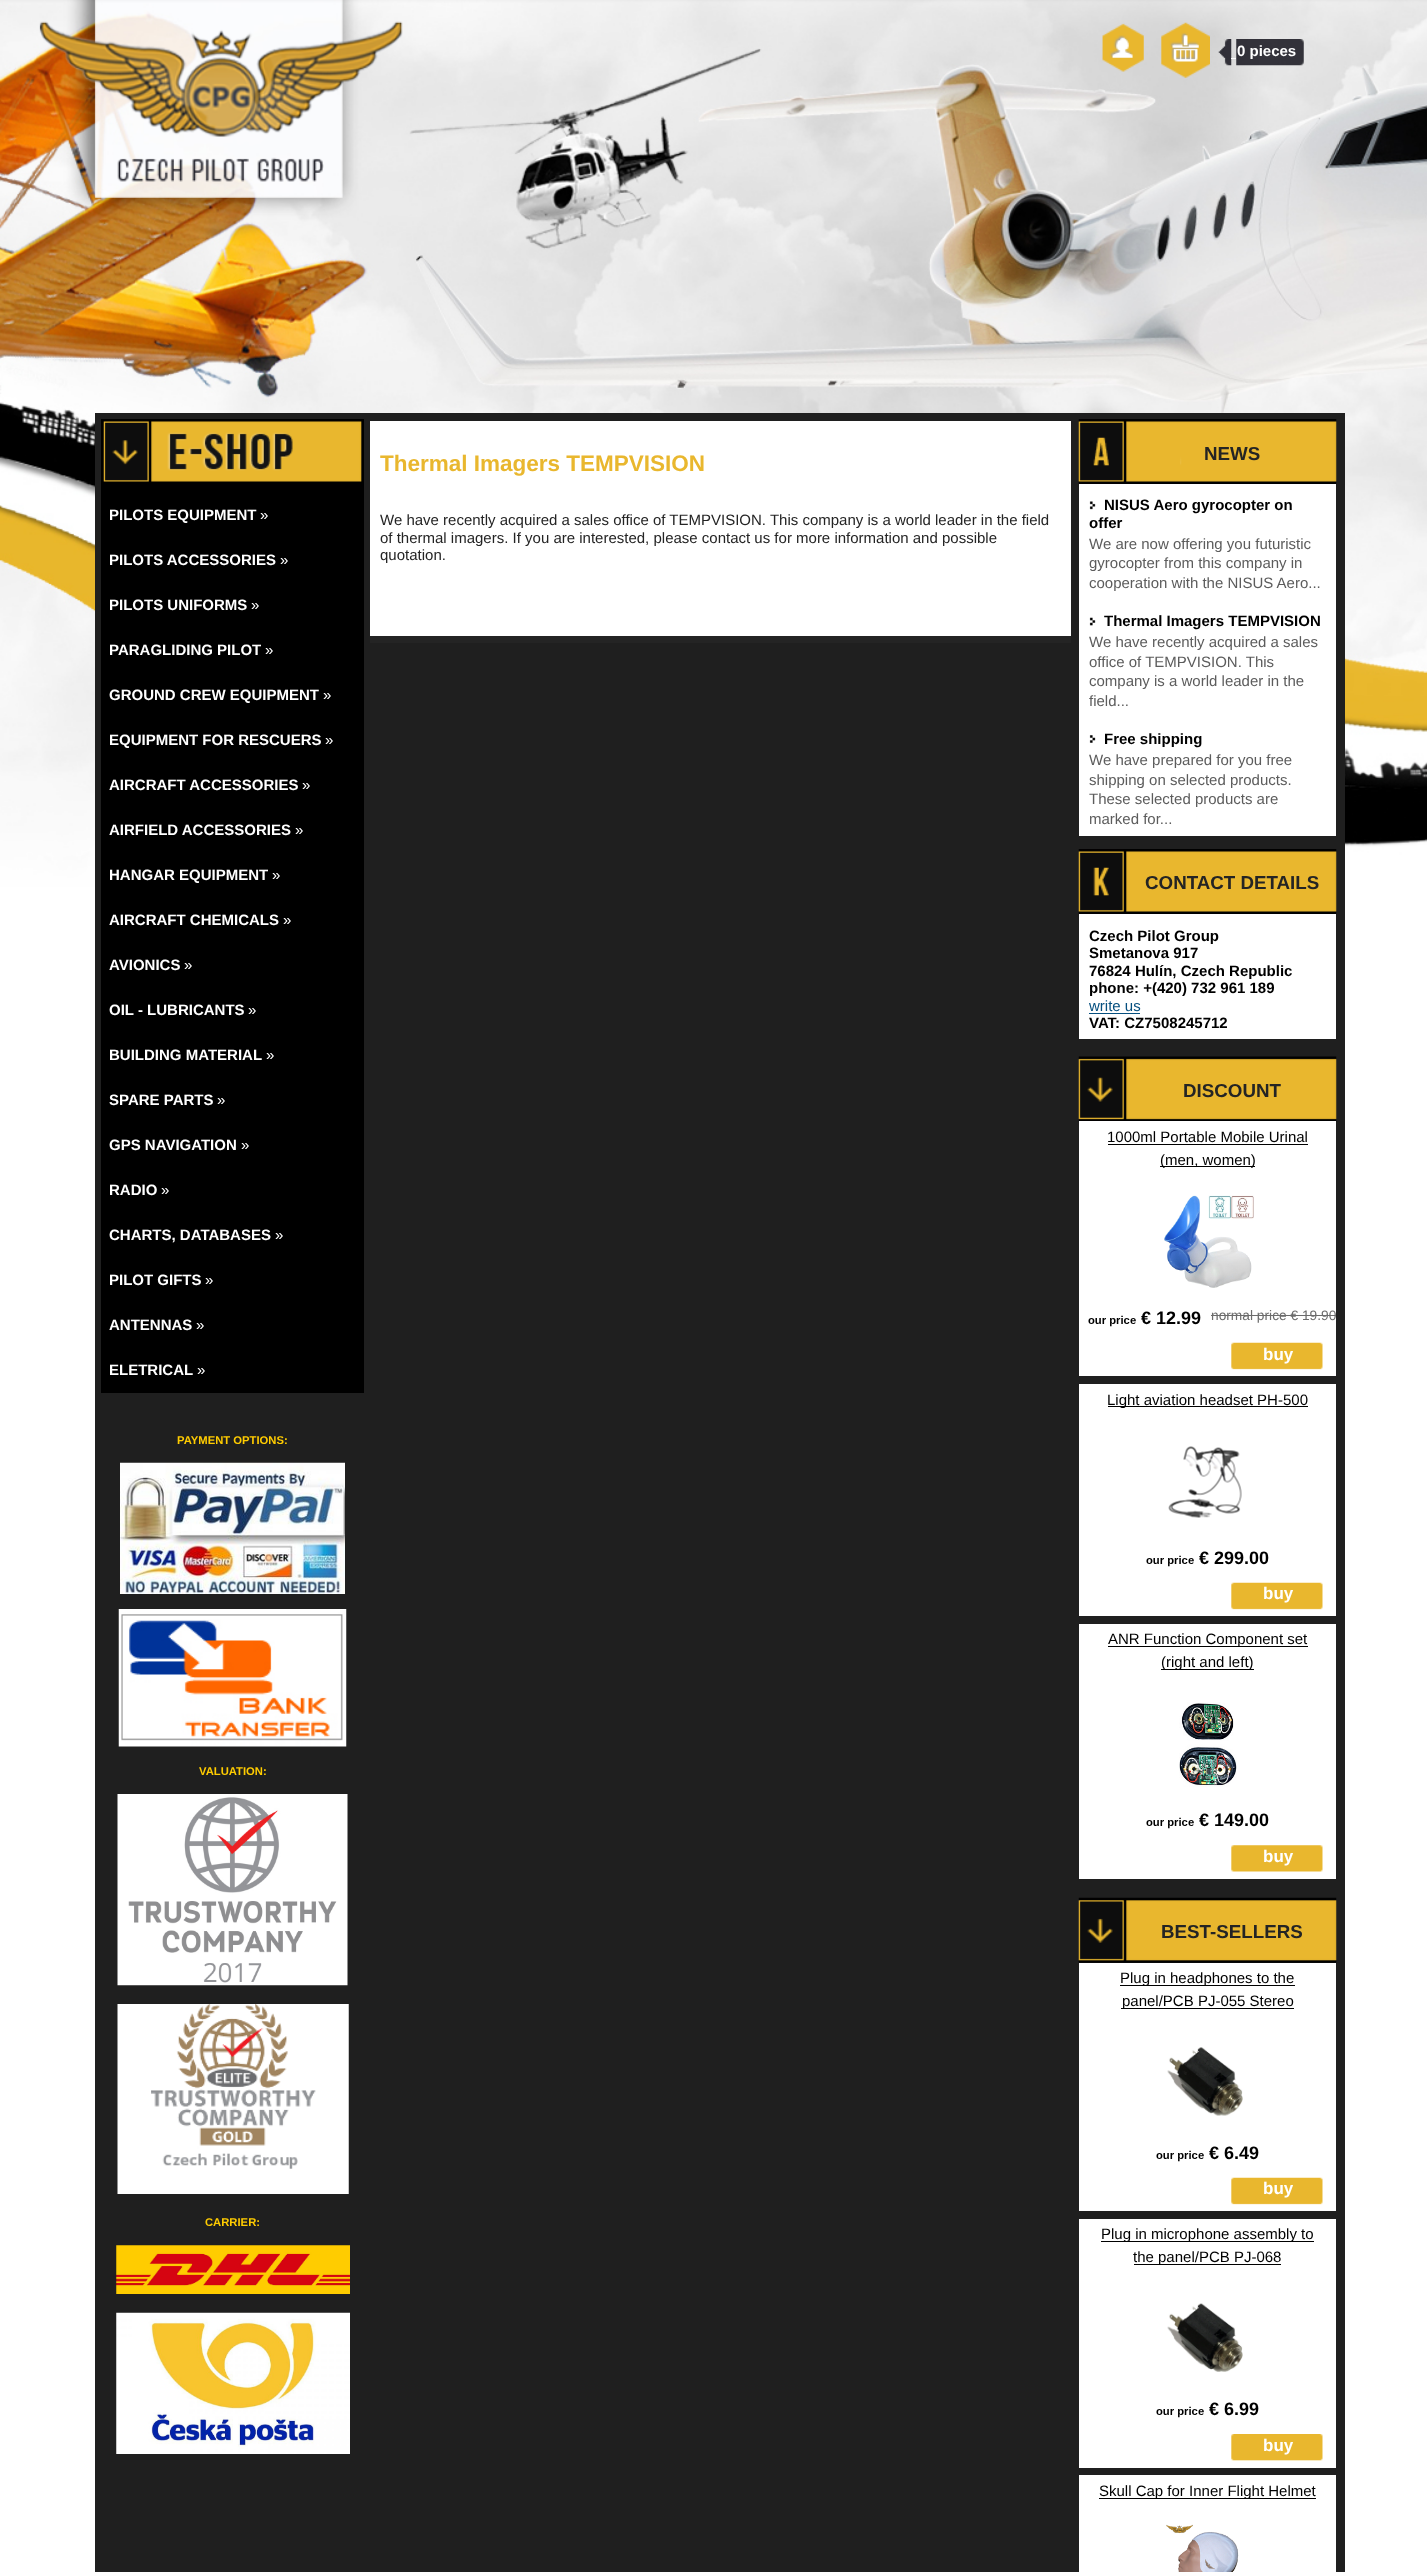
(async () => {
  const canvas = document.querySelector("canvas");
  canvas.width = 1427;
  canvas.height = 2572;
  const ctx = canvas.getContext("2d");
  ctx.miterLimit = 4;
  ctx.fontKerning = "normal";
  async function loadImage(src) {
    const img = new Image();
    img.src = src;
    await img.decode();
    return img;
  }

  ctx.fillStyle = "#ffffff";
  ctx.fillRect(0, 0, 1427, 2572);
  ctx.drawImage(await loadImage("img/1.png"), 0, 0, 1427, 887);
  ctx.drawImage(await loadImage("img/2.png"), 88, 24, 1251, 752);
  ctx.drawImage(await loadImage("img/3.png"), 39, 21, 364, 161);
  ctx.drawImage(await loadImage("img/4.png"), 1102, 23, 42, 49);
  ctx.drawImage(await loadImage("img/5.png"), 1161, 22, 49, 56);
  ctx.drawImage(await loadImage("img/6.png"), 1218, 39, 14, 27);
  ctx.fillRect(1231, 58, 5, 1);
  ctx.drawImage(await loadImage("img/7.png"), 1236, 39, 68, 27);
  ctx.fillStyle = "#1f1f1f";
  ctx.fillRect(95, 413, 1250, 2159);
  ctx.fillStyle = "#000000";
  ctx.fillRect(101, 419, 263, 974);
  ctx.drawImage(await loadImage("img/8.png"), 103, 421, 259, 61);
  ctx.drawImage(await loadImage("img/9.png"), 120, 1462, 225, 132);
  ctx.drawImage(await loadImage("img/10.png"), 118, 1609, 229, 138);
  ctx.drawImage(await loadImage("img/11.png"), 117, 1794, 231, 192);
  ctx.drawImage(await loadImage("img/12.png"), 117, 2004, 232, 190);
  ctx.drawImage(await loadImage("img/13.png"), 116, 2245, 234, 49);
  ctx.drawImage(await loadImage("img/14.png"), 116, 2312, 234, 142);
  for (const [x, y, w, h, color] of [
    [370, 421, 701, 215, "#ffffff"],
    [370, 636, 701, 7, "#242424"],
    [1079, 419, 257, 417, "#ffffff"],
  ]) {
    ctx.fillStyle = color;
    ctx.fillRect(x, y, w, h);
  }
  ctx.drawImage(await loadImage("img/15.png"), 1078, 419, 259, 65);
  ctx.drawImage(await loadImage("img/16.png"), 1089, 501, 7, 9);
  ctx.drawImage(await loadImage("img/17.png"), 1089, 617, 7, 9);
  ctx.drawImage(await loadImage("img/18.png"), 1089, 735, 7, 8);
  ctx.drawImage(await loadImage("img/19.png"), 1078, 849, 259, 65);
  ctx.fillRect(1079, 914, 257, 125);
  ctx.fillStyle = "#054f7f";
  ctx.fillRect(1089, 1013, 51, 1);
  ctx.drawImage(await loadImage("img/20.png"), 1078, 1056, 259, 66);
  for (const [x, y, w, h, color] of [
    [1079, 1121, 257, 255, "#ffffff"],
    [1108, 1144, 200, 1, "#000000"],
    [1160, 1166, 95, 1, "#000000"],
  ]) {
    ctx.fillStyle = color;
    ctx.fillRect(x, y, w, h);
  }
  ctx.drawImage(await loadImage("img/21.png"), 1164, 1195, 90, 93);
  ctx.fillStyle = "#6c6c6c";
  ctx.fillRect(1211, 1315, 125, 1);
  ctx.drawImage(await loadImage("img/22.png"), 1231, 1342, 92, 28);
  ctx.fillStyle = "#ffffff";
  ctx.fillRect(1079, 1384, 257, 232);
  ctx.fillStyle = "#000000";
  ctx.fillRect(1108, 1406, 200, 1);
  ctx.drawImage(await loadImage("img/23.png"), 1168, 1446, 74, 72);
  ctx.drawImage(await loadImage("img/22.png"), 1231, 1582, 92, 28);
  for (const [x, y, w, h, color] of [
    [1079, 1624, 257, 255, "#ffffff"],
    [1108, 1646, 200, 1, "#000000"],
    [1161, 1669, 93, 1, "#000000"],
  ]) {
    ctx.fillStyle = color;
    ctx.fillRect(x, y, w, h);
  }
  ctx.drawImage(await loadImage("img/24.png"), 1179, 1702, 58, 85);
  ctx.drawImage(await loadImage("img/25.png"), 1231, 1845, 92, 27);
  ctx.drawImage(await loadImage("img/26.png"), 1078, 1897, 259, 66);
  for (const [x, y, w, h, color] of [
    [1079, 1963, 257, 248, "#ffffff"],
    [1120, 1985, 175, 1, "#000000"],
    [1121, 2008, 173, 1, "#000000"],
  ]) {
    ctx.fillStyle = color;
    ctx.fillRect(x, y, w, h);
  }
  ctx.drawImage(await loadImage("img/27.png"), 1167, 2047, 76, 69);
  ctx.drawImage(await loadImage("img/22.png"), 1231, 2177, 92, 28);
  for (const [x, y, w, h, color] of [
    [1079, 2219, 257, 249, "#ffffff"],
    [1101, 2241, 213, 1, "#000000"],
    [1134, 2264, 147, 1, "#000000"],
  ]) {
    ctx.fillStyle = color;
    ctx.fillRect(x, y, w, h);
  }
  ctx.drawImage(await loadImage("img/28.png"), 1167, 2303, 76, 69);
  ctx.drawImage(await loadImage("img/29.png"), 1231, 2434, 92, 27);
  ctx.fillStyle = "#ffffff";
  ctx.fillRect(1079, 2475, 257, 97);
  ctx.fillStyle = "#000000";
  ctx.fillRect(1099, 2498, 217, 1);
  ctx.drawImage(await loadImage("img/30.png"), 1166, 2524, 73, 48);
  ctx.font = "bold 15px Liberation Sans";
  ctx.fillStyle = "#ffffff";
  ctx.fillText("0 pieces", 1237, 56);
  ctx.fillText("PILOTS EQUIPMENT", 109, 520);
  ctx.font = "15px Liberation Sans";
  ctx.fillText("»", 260, 520);
  ctx.font = "bold 15px Liberation Sans";
  ctx.fillText("PILOTS ACCESSORIES", 109, 565);
  ctx.font = "15px Liberation Sans";
  ctx.fillText("»", 280, 565);
  ctx.font = "bold 15px Liberation Sans";
  ctx.fillText("PILOTS UNIFORMS", 109, 610);
  ctx.font = "15px Liberation Sans";
  ctx.fillText("»", 251, 610);
  ctx.font = "bold 15px Liberation Sans";
  ctx.fillText("PARAGLIDING PILOT", 109, 655);
  ctx.font = "15px Liberation Sans";
  ctx.fillText("»", 265, 655);
  ctx.font = "bold 15px Liberation Sans";
  ctx.fillText("GROUND CREW EQUIPMENT", 109, 700);
  ctx.font = "15px Liberation Sans";
  ctx.fillText("»", 323, 700);
  ctx.font = "bold 15px Liberation Sans";
  ctx.fillText("EQUIPMENT FOR RESCUERS", 109, 745);
  ctx.font = "15px Liberation Sans";
  ctx.fillText("»", 325, 745);
  ctx.font = "bold 15px Liberation Sans";
  ctx.fillText("AIRCRAFT ACCESSORIES", 109, 790);
  ctx.font = "15px Liberation Sans";
  ctx.fillText("»", 302, 790);
  ctx.font = "bold 15px Liberation Sans";
  ctx.fillText("AIRFIELD ACCESSORIES", 109, 835);
  ctx.font = "15px Liberation Sans";
  ctx.fillText("»", 295, 835);
  ctx.font = "bold 15px Liberation Sans";
  ctx.fillText("HANGAR EQUIPMENT", 109, 880);
  ctx.font = "15px Liberation Sans";
  ctx.fillText("»", 272, 880);
  ctx.font = "bold 15px Liberation Sans";
  ctx.fillText("AIRCRAFT CHEMICALS", 109, 925);
  ctx.font = "15px Liberation Sans";
  ctx.fillText("»", 283, 925);
  ctx.font = "bold 15px Liberation Sans";
  ctx.fillText("AVIONICS", 109, 970);
  ctx.font = "15px Liberation Sans";
  ctx.fillText("»", 184, 970);
  ctx.font = "bold 15px Liberation Sans";
  ctx.fillText("OIL - LUBRICANTS", 109, 1015);
  ctx.font = "15px Liberation Sans";
  ctx.fillText("»", 248, 1015);
  ctx.font = "bold 15px Liberation Sans";
  ctx.fillText("BUILDING MATERIAL", 109, 1060);
  ctx.font = "15px Liberation Sans";
  ctx.fillText("»", 266, 1060);
  ctx.font = "bold 15px Liberation Sans";
  ctx.fillText("SPARE PARTS", 109, 1105);
  ctx.font = "15px Liberation Sans";
  ctx.fillText("»", 217, 1105);
  ctx.font = "bold 15px Liberation Sans";
  ctx.fillText("GPS NAVIGATION", 109, 1150);
  ctx.font = "15px Liberation Sans";
  ctx.fillText("»", 241, 1150);
  ctx.font = "bold 15px Liberation Sans";
  ctx.fillText("RADIO", 109, 1195);
  ctx.font = "15px Liberation Sans";
  ctx.fillText("»", 161, 1195);
  ctx.font = "bold 15px Liberation Sans";
  ctx.fillText("CHARTS, DATABASES", 109, 1240);
  ctx.font = "15px Liberation Sans";
  ctx.fillText("»", 275, 1240);
  ctx.font = "bold 15px Liberation Sans";
  ctx.fillText("PILOT GIFTS", 109, 1285);
  ctx.font = "15px Liberation Sans";
  ctx.fillText("»", 205, 1285);
  ctx.font = "bold 15px Liberation Sans";
  ctx.fillText("ANTENNAS", 109, 1330);
  ctx.font = "15px Liberation Sans";
  ctx.fillText("»", 196, 1330);
  ctx.font = "bold 15px Liberation Sans";
  ctx.fillText("ELETRICAL", 109, 1375);
  ctx.font = "15px Liberation Sans";
  ctx.fillText("»", 197, 1375);
  ctx.font = "bold 11.25px Liberation Sans";
  ctx.fillStyle = "#ffcc00";
  for (const [text, x, y] of [
    ["PAYMENT OPTIONS:", 177, 1444],
    ["VALUATION:", 199, 1775],
    ["CARRIER:", 205, 2226],
  ]) {
    ctx.fillText(text, x, y);
  }
  ctx.font = "bold 22.5px Liberation Sans";
  ctx.fillStyle = "#e9b72e";
  ctx.fillText("Thermal Imagers TEMPVISION", 380, 471);
  ctx.font = "15px Liberation Sans";
  ctx.fillStyle = "#242424";
  for (const [text, x, y] of [
    ["We have recently acquired a sales office of TEMPVISION. This company is a world leader in the field", 380, 525],
    ["of thermal imagers. If you are interested, please contact us for more information and possible", 380, 543],
    ["quotation.", 380, 560],
  ]) {
    ctx.fillText(text, x, y);
  }
  ctx.font = "bold 18.75px Liberation Sans";
  ctx.fillText("NEWS", 1204, 460);
  ctx.font = "bold 15px Liberation Sans";
  ctx.fillStyle = "#000000";
  ctx.fillText("NISUS Aero gyrocopter on", 1104, 510);
  ctx.fillText("offer", 1089, 528);
  ctx.font = "15px Liberation Sans";
  ctx.fillStyle = "#5c5c5c";
  for (const [text, x, y] of [
    ["We are now offering you futuristic", 1089, 549],
    ["gyrocopter from this company in", 1089, 568],
    ["cooperation with the NISUS Aero...", 1089, 588],
  ]) {
    ctx.fillText(text, x, y);
  }
  ctx.font = "bold 15px Liberation Sans";
  ctx.fillStyle = "#000000";
  ctx.fillText("Thermal Imagers TEMPVISION", 1104, 626);
  ctx.font = "15px Liberation Sans";
  ctx.fillStyle = "#5c5c5c";
  for (const [text, x, y] of [
    ["We have recently acquired a sales", 1089, 647],
    ["office of TEMPVISION. This", 1089, 667],
    ["company is a world leader in the", 1089, 686],
    ["field...", 1089, 706],
  ]) {
    ctx.fillText(text, x, y);
  }
  ctx.font = "bold 15px Liberation Sans";
  ctx.fillStyle = "#000000";
  ctx.fillText("Free shipping", 1104, 744);
  ctx.font = "15px Liberation Sans";
  ctx.fillStyle = "#5c5c5c";
  for (const [text, x, y] of [
    ["We have prepared for you free", 1089, 765],
    ["shipping on selected products.", 1089, 785],
    ["These selected products are", 1089, 804],
    ["marked for...", 1089, 824],
  ]) {
    ctx.fillText(text, x, y);
  }
  ctx.font = "bold 18.75px Liberation Sans";
  ctx.fillStyle = "#242424";
  ctx.fillText("CONTACT DETAILS", 1145, 889);
  ctx.font = "bold 15px Liberation Sans";
  ctx.fillStyle = "#000000";
  for (const [text, x, y] of [
    ["Czech Pilot Group", 1089, 941],
    ["Smetanova 917", 1089, 958],
    ["76824 Hulín, Czech Republic", 1089, 976],
    ["phone: +(420) 732 961 189", 1089, 993],
  ]) {
    ctx.fillText(text, x, y);
  }
  ctx.font = "15px Liberation Sans";
  ctx.fillStyle = "#054f7f";
  ctx.fillText("write us", 1089, 1011);
  ctx.font = "bold 15px Liberation Sans";
  ctx.fillStyle = "#000000";
  ctx.fillText("VAT: CZ7508245712", 1089, 1028);
  ctx.font = "bold 18.75px Liberation Sans";
  ctx.fillStyle = "#242424";
  ctx.fillText("DISCOUNT", 1183, 1097);
  ctx.font = "15px Liberation Sans";
  ctx.fillStyle = "#000000";
  ctx.fillText("1000ml Portable Mobile Urinal", 1107, 1142);
  ctx.fillText("(men, women)", 1160, 1165);
  ctx.font = "bold 11.25px Liberation Sans";
  ctx.fillText("our price", 1088, 1324);
  ctx.font = "bold 18px Liberation Sans";
  ctx.fillText("€ 12.99", 1141, 1324);
  ctx.font = "13.75px Liberation Sans";
  ctx.fillStyle = "#6c6c6c";
  ctx.fillText("normal price € 19.90", 1211, 1320);
  ctx.font = "bold 17px Liberation Sans";
  ctx.fillStyle = "#ffffff";
  ctx.fillText("buy", 1263, 1360);
  ctx.font = "15px Liberation Sans";
  ctx.fillStyle = "#000000";
  ctx.fillText("Light aviation headset PH-500", 1107, 1405);
  ctx.font = "bold 11.25px Liberation Sans";
  ctx.fillText("our price", 1146, 1564);
  ctx.font = "bold 18px Liberation Sans";
  ctx.fillText("€ 299.00", 1199, 1564);
  ctx.font = "bold 17px Liberation Sans";
  ctx.fillStyle = "#ffffff";
  ctx.fillText("buy", 1263, 1599);
  ctx.font = "15px Liberation Sans";
  ctx.fillStyle = "#000000";
  ctx.fillText("ANR Function Component set", 1108, 1644);
  ctx.fillText("(right and left)", 1161, 1667);
  ctx.font = "bold 11.25px Liberation Sans";
  ctx.fillText("our price", 1146, 1826);
  ctx.font = "bold 18px Liberation Sans";
  ctx.fillText("€ 149.00", 1199, 1826);
  ctx.font = "bold 17px Liberation Sans";
  ctx.fillStyle = "#ffffff";
  ctx.fillText("buy", 1263, 1862);
  ctx.font = "bold 18.75px Liberation Sans";
  ctx.fillStyle = "#242424";
  ctx.fillText("BEST-SELLERS", 1161, 1938);
  ctx.font = "15px Liberation Sans";
  ctx.fillStyle = "#000000";
  ctx.fillText("Plug in headphones to the", 1120, 1983);
  ctx.fillText("panel/PCB PJ-055 Stereo", 1122, 2006);
  ctx.font = "bold 11.25px Liberation Sans";
  ctx.fillText("our price", 1156, 2159);
  ctx.font = "bold 18px Liberation Sans";
  ctx.fillText("€ 6.49", 1209, 2159);
  ctx.font = "bold 17px Liberation Sans";
  ctx.fillStyle = "#ffffff";
  ctx.fillText("buy", 1263, 2194);
  ctx.font = "15px Liberation Sans";
  ctx.fillStyle = "#000000";
  ctx.fillText("Plug in microphone assembly to", 1101, 2239);
  ctx.fillText("the panel/PCB PJ-068", 1133, 2262);
  ctx.font = "bold 11.25px Liberation Sans";
  ctx.fillText("our price", 1156, 2415);
  ctx.font = "bold 18px Liberation Sans";
  ctx.fillText("€ 6.99", 1209, 2415);
  ctx.font = "bold 17px Liberation Sans";
  ctx.fillStyle = "#ffffff";
  ctx.fillText("buy", 1263, 2451);
  ctx.font = "15px Liberation Sans";
  ctx.fillStyle = "#000000";
  ctx.fillText("Skull Cap for Inner Flight Helmet", 1099, 2496);
})();
